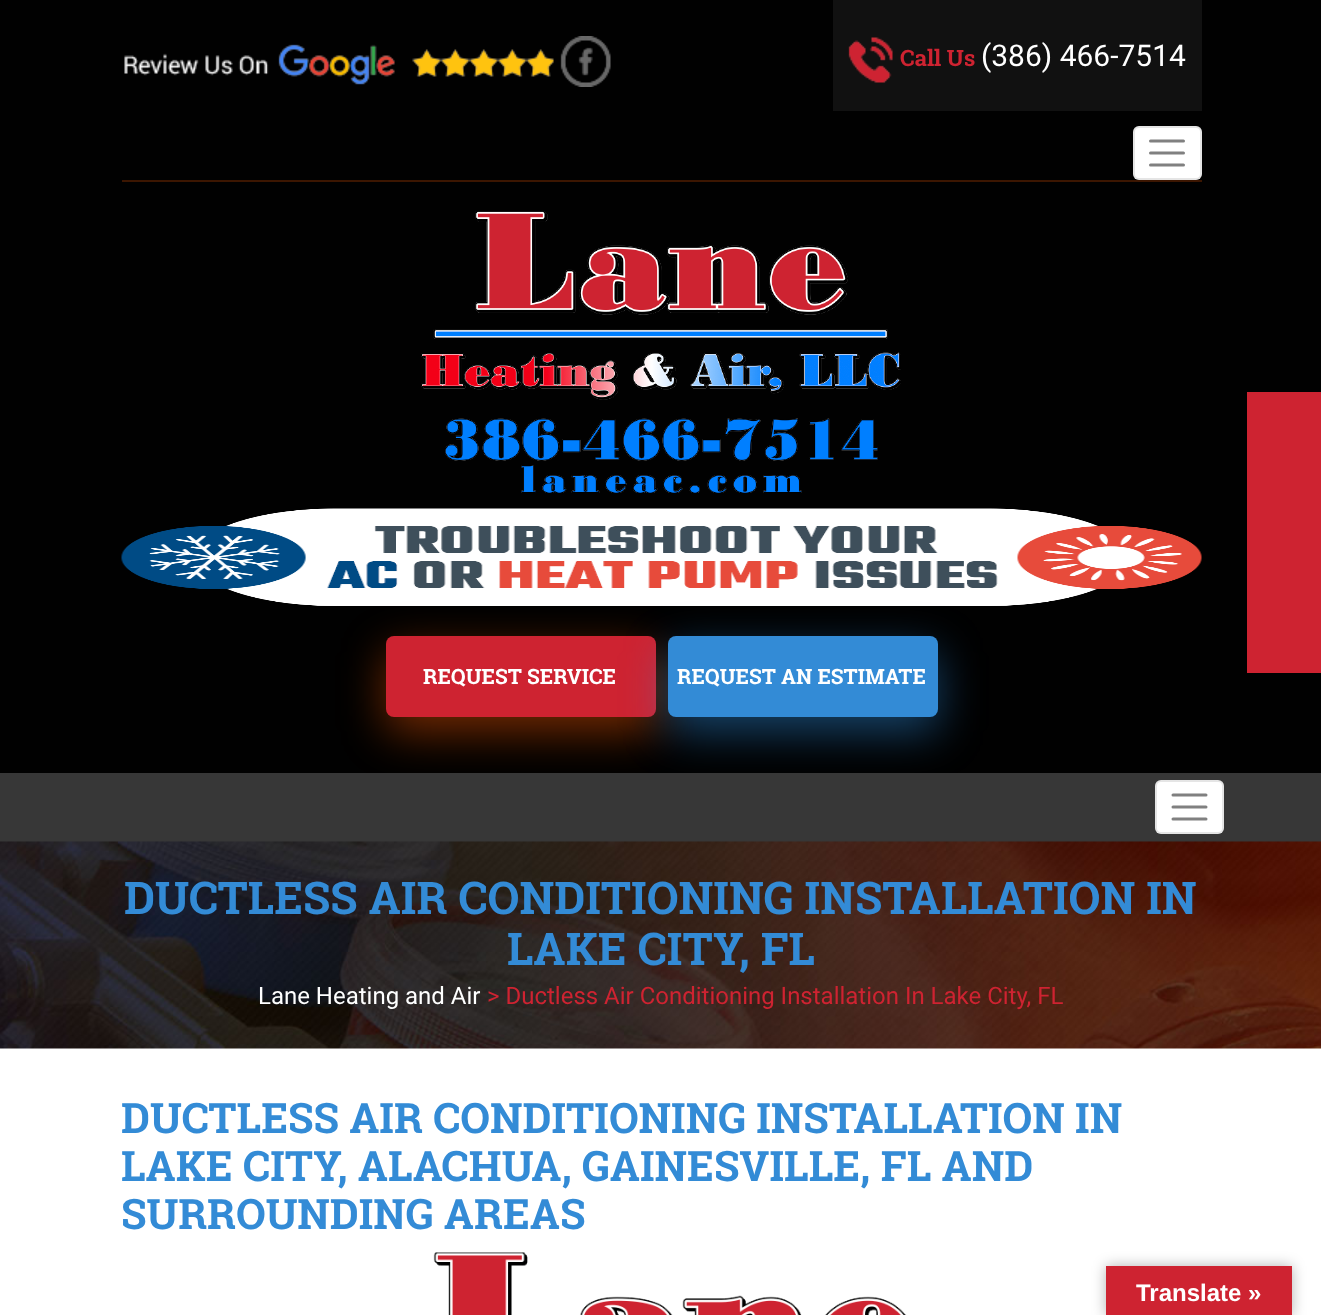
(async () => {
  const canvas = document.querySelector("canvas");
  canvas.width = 1321;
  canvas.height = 1315;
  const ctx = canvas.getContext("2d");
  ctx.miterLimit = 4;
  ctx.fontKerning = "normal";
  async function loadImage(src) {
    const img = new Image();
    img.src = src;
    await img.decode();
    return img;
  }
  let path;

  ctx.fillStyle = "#ffffff";
  ctx.fillRect(0, 0, 1321, 1315);
  ctx.fillStyle = "#010101";
  ctx.fillRect(0, 0, 1321, 773);
  ctx.fillStyle = "#3c1601";
  ctx.fillRect(122, 180, 1080, 2);
  ctx.drawImage(await loadImage("img/1.png"), 124, 44, 430, 41);
  ctx.drawImage(await loadImage("img/2.png"), 560, 36, 51, 51);
  ctx.fillStyle = "#111111";
  ctx.fillRect(833, 0, 369, 111);
  ctx.drawImage(await loadImage("img/3.png"), 848, 37, 45, 46);
  ctx.fillStyle = "#ffffff";
  ctx.beginPath();
  ctx.roundRect(1133, 126, 69, 54, 6);
  ctx.fill();
  ctx.beginPath();
  ctx.roundRect(1134, 127, 67, 52, 5);
  ctx.strokeStyle = "rgba(0, 0, 0, 0.1)";
  ctx.lineWidth = 2;
  ctx.stroke();
  path = new Path2D("M1150.5 141H1183.5M1150.5 153H1183.5M1150.5 165H1183.5");
  ctx.strokeStyle = "#808080";
  ctx.lineWidth = 3;
  ctx.lineCap = "round";
  ctx.stroke(path);
  ctx.drawImage(await loadImage("img/4.png"), 421, 211, 480, 282);
  ctx.drawImage(await loadImage("img/5.png"), 121, 508, 1081, 98);
  ctx.fillStyle = "rgba(255, 92, 2, 0.45)";
  ctx.filter = "blur(22.5px)";
  ctx.beginPath();
  ctx.roundRect(386, 651, 270, 81, 8);
  ctx.fill();
  ctx.filter = "none";
  ctx.fillStyle = "#ce2331";
  ctx.beginPath();
  ctx.roundRect(386, 636, 270, 81, 8);
  ctx.fill();
  ctx.fillStyle = "rgba(48, 148, 233, 0.45)";
  ctx.filter = "blur(22.5px)";
  ctx.beginPath();
  ctx.roundRect(668, 651, 270, 81, 8);
  ctx.fill();
  ctx.filter = "none";
  ctx.fillStyle = "#338bd6";
  ctx.beginPath();
  ctx.roundRect(668, 636, 270, 81, 8);
  ctx.fill();
  ctx.fillStyle = "#373737";
  ctx.fillRect(0, 773, 1321, 69);
  ctx.fillStyle = "#ffffff";
  ctx.beginPath();
  ctx.roundRect(1155, 780, 69, 54, 6);
  ctx.fill();
  ctx.beginPath();
  ctx.roundRect(1156, 781, 67, 52, 5);
  ctx.strokeStyle = "rgba(0, 0, 0, 0.1)";
  ctx.lineWidth = 2;
  ctx.stroke();
  path = new Path2D("M1173 795H1206M1173 807H1206M1173 819H1206");
  ctx.strokeStyle = "#808080";
  ctx.lineWidth = 3;
  ctx.stroke(path);
  ctx.drawImage(await loadImage("img/6.png"), 0, 841, 1321, 208);
  ctx.drawImage(await loadImage("img/7.png"), 433, 1252, 474, 63);
  ctx.fillStyle = "#ce2331";
  ctx.fillRect(1247, 392, 74, 281);
  ctx.fillStyle = "rgba(0, 0, 0, 0.3)";
  ctx.filter = "blur(7px)";
  ctx.beginPath();
  ctx.rect(1106, 1266, 186, 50);
  ctx.fill();
  ctx.filter = "none";
  ctx.fillStyle = "#ce2331";
  ctx.fillRect(1106, 1266, 186, 49);
  ctx.font = "bold 22.5px Roboto Slab";
  ctx.fillText("Call Us", 900, 66);
  ctx.font = "30px Roboto";
  ctx.fillStyle = "#ffffff";
  ctx.fillText("(386) 466-7514", 981, 66);
  ctx.font = "bold 21px Roboto Slab";
  ctx.fillText("REQUEST SERVICE", 423, 684);
  ctx.fillText("REQUEST AN ESTIMATE", 677, 684);
  ctx.font = "bold 45px Roboto Slab";
  ctx.fillStyle = "#338bd6";
  ctx.fillText("DUCTLESS AIR CONDITIONING INSTALLATION IN", 124, 914);
  ctx.fillText("LAKE CITY, FL", 507, 965);
  ctx.font = "24px Roboto";
  ctx.fillStyle = "#ffffff";
  ctx.fillText("Lane Heating and Air", 258, 1004);
  ctx.fillStyle = "#ce2331";
  ctx.fillText("> Ductless Air Conditioning Installation In Lake City, FL", 487, 1004);
  ctx.font = "bold 42px Roboto Slab";
  ctx.fillStyle = "#338bd6";
  for (const [text, x, y] of [
    ["DUCTLESS AIR CONDITIONING INSTALLATION IN", 121, 1133],
    ["LAKE CITY, ALACHUA, GAINESVILLE, FL AND", 121, 1181],
    ["SURROUNDING AREAS", 121, 1229],
  ]) {
    ctx.fillText(text, x, y);
  }
  ctx.font = "bold 24px Liberation Sans";
  ctx.fillStyle = "#ffffff";
  ctx.fillText("Translate »", 1136, 1301);
})();
